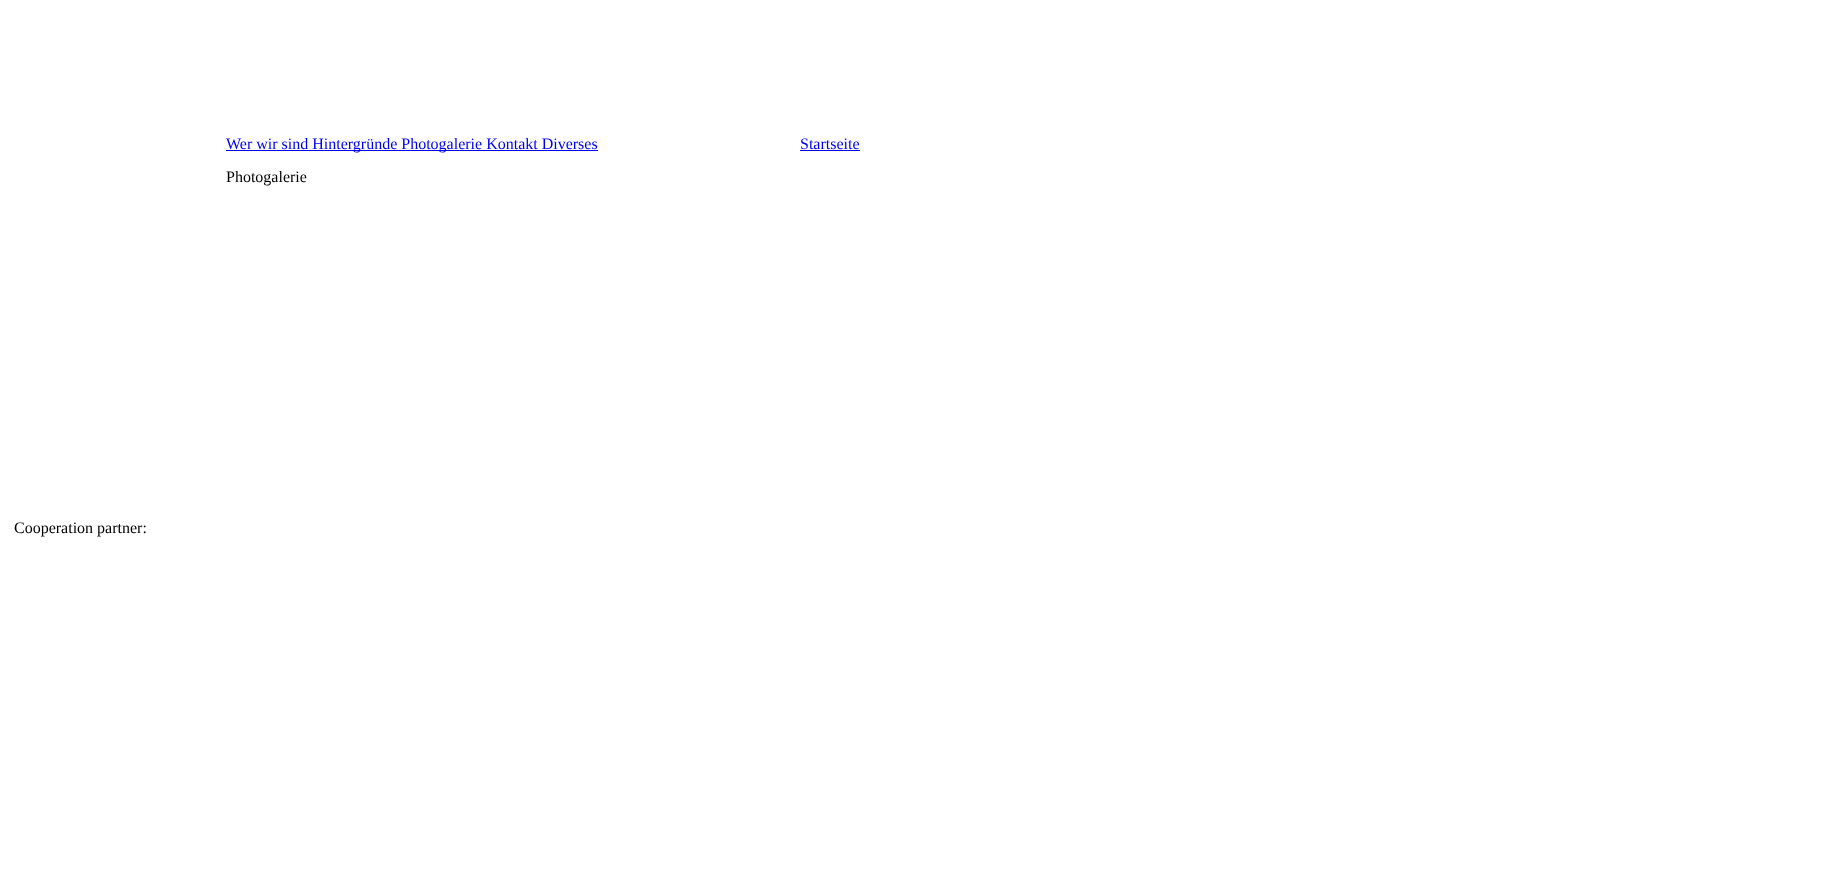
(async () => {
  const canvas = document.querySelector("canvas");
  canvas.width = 1848;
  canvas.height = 874;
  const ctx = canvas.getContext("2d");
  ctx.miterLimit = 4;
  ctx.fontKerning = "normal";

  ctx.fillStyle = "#ffffff";
  ctx.fillRect(0, 0, 1848, 874);
  ctx.fillStyle = "#0000ee";
  ctx.fillRect(226, 150, 372, 1);
  ctx.fillRect(800, 150, 60, 1);
  ctx.font = "16px Liberation Serif";
  ctx.fillText("Wer wir sind Hintergründe Photogalerie Kontakt Diverses", 226, 149);
  ctx.fillText("Startseite", 800, 149);
  ctx.fillStyle = "#000000";
  ctx.fillText("Photogalerie", 226, 182);
  ctx.fillText("Cooperation partner:", 14, 533);
})();
